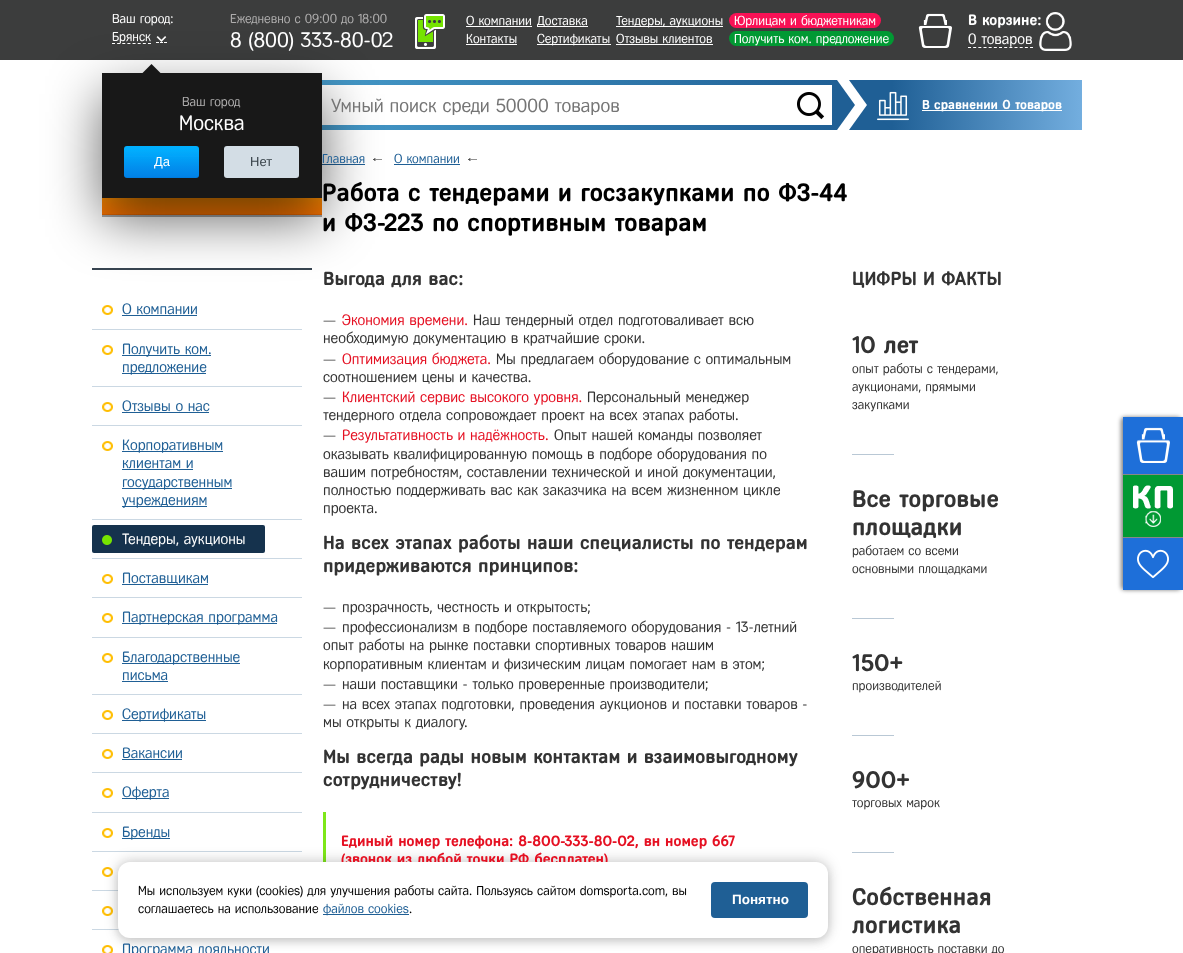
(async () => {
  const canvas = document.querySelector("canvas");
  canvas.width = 1183;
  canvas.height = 953;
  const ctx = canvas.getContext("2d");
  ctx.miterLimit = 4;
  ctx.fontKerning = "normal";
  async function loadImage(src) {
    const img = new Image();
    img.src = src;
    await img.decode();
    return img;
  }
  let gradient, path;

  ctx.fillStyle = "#ffffff";
  ctx.fillRect(0, 0, 1183, 953);
  ctx.fillStyle = "#3c3d3d";
  ctx.fillRect(0, 0, 1183, 60);
  path = new Path2D("M112 43.5H151");
  ctx.strokeStyle = "#ffffff";
  ctx.setLineDash([3, 2.14]);
  ctx.stroke(path);
  path = new Path2D("M156 42.5H159M160 42.5H163M164 42.5H167");
  ctx.setLineDash([]);
  ctx.stroke(path);
  ctx.drawImage(await loadImage("img/1.png"), 156, 36, 11, 6);
  gradient = ctx.createLinearGradient(102, 105, 837, 105);
  gradient.addColorStop(0, "#55b1dd");
  gradient.addColorStop(1, "#1f5f95");
  ctx.fillStyle = gradient;
  ctx.fillRect(322, 80, 515, 50);
  ctx.fillStyle = "#ffffff";
  ctx.fillRect(322, 85, 510, 40);
  ctx.fillStyle = "rgba(0, 0, 0, 0.35)";
  ctx.filter = "blur(0.5px)";
  ctx.beginPath();
  ctx.rect(102, 172, 220, 45);
  ctx.fill();
  ctx.filter = "none";
  gradient = ctx.createLinearGradient(212, 170, 212, 215);
  gradient.addColorStop(0, "#ffbc00");
  gradient.addColorStop(0.18, "#ffb300");
  gradient.addColorStop(0.73, "#ff8500");
  gradient.addColorStop(0.98, "#ff7600");
  gradient.addColorStop(1, "#cc5700");
  ctx.fillStyle = gradient;
  ctx.fillRect(102, 198, 220, 17);
  ctx.fillStyle = "#1f5f95";
  ctx.fillRect(322, 164, 43, 1);
  ctx.drawImage(await loadImage("img/7.png"), 373, 158, 9, 3);
  ctx.fillRect(394, 164, 66, 1);
  ctx.fillStyle = "#384551";
  ctx.fillRect(92, 268, 220, 2);
  ctx.fillStyle = "rgba(0, 0, 0, 0.6)";
  ctx.filter = "blur(27px)";
  ctx.beginPath();
  ctx.rect(102, 94, 220, 125);
  ctx.fill();
  ctx.filter = "none";
  ctx.fillStyle = "#181818";
  ctx.fillRect(102, 73, 220, 125);
  path = new Path2D("M151.5 64L165.5 78L151.5 92L137.5 78Z");
  ctx.fill(path);
  gradient = ctx.createLinearGradient(162, 146, 162, 178);
  gradient.addColorStop(0, "#00b0ff");
  gradient.addColorStop(0.16, "#01acfd");
  gradient.addColorStop(0.18, "#03aafb");
  gradient.addColorStop(0.29, "#00a5fa");
  gradient.addColorStop(0.33, "#04a3f8");
  gradient.addColorStop(0.36, "#00a1f7");
  gradient.addColorStop(0.67, "#028fee");
  gradient.addColorStop(0.98, "#0081e7");
  gradient.addColorStop(1, "#0068c4");
  ctx.fillStyle = gradient;
  ctx.beginPath();
  ctx.roundRect(124, 146, 75, 32, 3);
  ctx.fill();
  ctx.fillStyle = "#d3dde5";
  ctx.beginPath();
  ctx.roundRect(224, 146, 75, 32, 3);
  ctx.fill();
  ctx.drawImage(await loadImage("img/2.png"), 415, 14, 30, 35);
  for (const [x, y, w, h, color] of [
    [466, 26, 66, 1, "#ffffff"],
    [466, 44, 51, 1, "#ffffff"],
    [537, 26, 51, 1, "#ffffff"],
    [537, 44, 74, 1, "#ffffff"],
    [616, 26, 107, 1, "#ffffff"],
    [616, 44, 97, 1, "#ffffff"],
  ]) {
    ctx.fillStyle = color;
    ctx.fillRect(x, y, w, h);
  }
  ctx.fillStyle = "#f81155";
  ctx.beginPath();
  ctx.roundRect(729, 13, 152, 15, 7.5);
  ctx.fill();
  ctx.fillStyle = "#019933";
  ctx.beginPath();
  ctx.roundRect(729, 31, 165, 15, 7.5);
  ctx.fill();
  ctx.drawImage(await loadImage("img/3.png"), 918, 13, 34, 35);
  path = new Path2D("M968 47.5H1033");
  ctx.setLineDash([3, 2.17]);
  ctx.stroke(path);
  ctx.drawImage(await loadImage("img/5.png"), 797, 92, 28, 28);
  ctx.fillStyle = "#1f5f95";
  path = new Path2D("M837 130V80L855 105Z");
  ctx.fill(path);
  gradient = ctx.createLinearGradient(892, 105, 1082, 105);
  gradient.addColorStop(0, "#1f5f95");
  gradient.addColorStop(1, "#73aedf");
  ctx.fillStyle = gradient;
  ctx.fillRect(892, 80, 190, 50);
  ctx.fillStyle = "#1f5f95";
  path = new Path2D("M849 80H892L867 105Z");
  ctx.fill(path);
  ctx.fillRect(867, 80, 25, 50);
  path = new Path2D("M892 130H849L867 105Z");
  ctx.fill(path);
  ctx.drawImage(await loadImage("img/6.png"), 877, 91, 32, 30);
  ctx.fillStyle = "#ffffff";
  ctx.fillRect(922, 110, 140, 1);
  ctx.drawImage(await loadImage("img/7.png"), 468, 158, 9, 3);
  ctx.fillStyle = "#cbd8e3";
  ctx.fillRect(92, 329, 210, 1);
  ctx.drawImage(await loadImage("img/8.png"), 102, 305, 11, 10);
  ctx.fillStyle = "#1f5f95";
  ctx.fillRect(122, 315, 75, 1);
  ctx.fillStyle = "#cbd8e3";
  ctx.fillRect(92, 386, 210, 1);
  ctx.drawImage(await loadImage("img/8.png"), 102, 345, 11, 10);
  for (const [x, y, w, h, color] of [
    [122, 355, 89, 1, "#1f5f95"],
    [122, 373, 84, 1, "#1f5f95"],
    [92, 425, 210, 1, "#cbd8e3"],
  ]) {
    ctx.fillStyle = color;
    ctx.fillRect(x, y, w, h);
  }
  ctx.drawImage(await loadImage("img/8.png"), 102, 402, 11, 10);
  ctx.fillStyle = "#1f5f95";
  ctx.fillRect(122, 412, 87, 1);
  ctx.fillStyle = "#cbd8e3";
  ctx.fillRect(92, 519, 210, 1);
  ctx.drawImage(await loadImage("img/8.png"), 102, 441, 11, 10);
  for (const [x, y, w, h, color] of [
    [122, 451, 101, 1, "#1f5f95"],
    [122, 469, 71, 1, "#1f5f95"],
    [122, 488, 110, 1, "#1f5f95"],
    [122, 506, 85, 1, "#1f5f95"],
    [92, 558, 210, 1, "#cbd8e3"],
  ]) {
    ctx.fillStyle = color;
    ctx.fillRect(x, y, w, h);
  }
  ctx.fillStyle = "#15324d";
  ctx.beginPath();
  ctx.roundRect(92, 525, 173, 28, 2);
  ctx.fill();
  ctx.drawImage(await loadImage("img/9.png"), 102, 535, 10, 10);
  ctx.fillStyle = "#cbd8e3";
  ctx.fillRect(92, 597, 210, 1);
  ctx.drawImage(await loadImage("img/8.png"), 102, 574, 11, 10);
  ctx.fillStyle = "#1f5f95";
  ctx.fillRect(122, 584, 86, 1);
  ctx.fillStyle = "#cbd8e3";
  ctx.fillRect(92, 637, 210, 1);
  ctx.drawImage(await loadImage("img/8.png"), 102, 613, 11, 10);
  ctx.fillStyle = "#1f5f95";
  ctx.fillRect(122, 623, 155, 1);
  ctx.fillStyle = "#cbd8e3";
  ctx.fillRect(92, 694, 210, 1);
  ctx.drawImage(await loadImage("img/8.png"), 102, 653, 11, 10);
  for (const [x, y, w, h, color] of [
    [122, 663, 118, 1, "#1f5f95"],
    [122, 681, 46, 1, "#1f5f95"],
    [92, 733, 210, 1, "#cbd8e3"],
  ]) {
    ctx.fillStyle = color;
    ctx.fillRect(x, y, w, h);
  }
  ctx.drawImage(await loadImage("img/8.png"), 102, 710, 11, 10);
  ctx.fillStyle = "#1f5f95";
  ctx.fillRect(122, 720, 84, 1);
  ctx.fillStyle = "#cbd8e3";
  ctx.fillRect(92, 772, 210, 1);
  ctx.drawImage(await loadImage("img/8.png"), 102, 749, 11, 10);
  ctx.fillStyle = "#1f5f95";
  ctx.fillRect(122, 759, 60, 1);
  ctx.fillStyle = "#cbd8e3";
  ctx.fillRect(92, 812, 210, 1);
  ctx.drawImage(await loadImage("img/8.png"), 102, 788, 11, 10);
  ctx.fillStyle = "#1f5f95";
  ctx.fillRect(122, 798, 47, 1);
  ctx.fillStyle = "#cbd8e3";
  ctx.fillRect(92, 851, 210, 1);
  ctx.drawImage(await loadImage("img/8.png"), 102, 828, 11, 10);
  ctx.fillStyle = "#1f5f95";
  ctx.fillRect(122, 838, 48, 1);
  ctx.fillStyle = "#cbd8e3";
  ctx.fillRect(92, 890, 26, 1);
  ctx.drawImage(await loadImage("img/8.png"), 102, 867, 11, 10);
  ctx.fillRect(92, 929, 27, 1);
  ctx.drawImage(await loadImage("img/8.png"), 102, 906, 11, 10);
  ctx.drawImage(await loadImage("img/10.png"), 102, 945, 11, 8);
  for (const [x, y, w, h, color] of [
    [323, 812, 3, 50, "#7ee719"],
    [852, 454, 42, 1, "#b9c8d5"],
    [852, 618, 42, 1, "#b9c8d5"],
    [852, 735, 42, 1, "#b9c8d5"],
    [852, 852, 42, 1, "#b9c8d5"],
  ]) {
    ctx.fillStyle = color;
    ctx.fillRect(x, y, w, h);
  }
  ctx.fillStyle = "rgba(0, 0, 0, 0.5)";
  ctx.filter = "blur(2px)";
  ctx.beginPath();
  ctx.roundRect(1121, 417, 60, 173, 4);
  ctx.fill();
  ctx.filter = "none";
  ctx.fillStyle = "#1e6fd9";
  ctx.fillRect(1123, 417, 60, 57);
  ctx.fillStyle = "#888888";
  ctx.fillRect(1123, 474, 60, 1);
  ctx.drawImage(await loadImage("img/11.png"), 1136, 427, 34, 36);
  ctx.fillStyle = "#019933";
  ctx.fillRect(1123, 475, 60, 62);
  ctx.fillStyle = "#888888";
  ctx.fillRect(1123, 537, 60, 1);
  ctx.drawImage(await loadImage("img/12.png"), 1133, 485, 40, 42);
  ctx.fillStyle = "#1e6fd9";
  ctx.fillRect(1123, 538, 60, 52);
  ctx.drawImage(await loadImage("img/13.png"), 1137, 549, 32, 30);
  ctx.fillStyle = "rgba(0, 0, 0, 0.2)";
  ctx.filter = "blur(7px)";
  ctx.beginPath();
  ctx.roundRect(118, 861, 710, 76, 12);
  ctx.fill();
  ctx.filter = "none";
  ctx.fillStyle = "rgba(94, 94, 94, 0.2)";
  ctx.filter = "blur(4px)";
  ctx.beginPath();
  ctx.roundRect(118, 866, 710, 76, 12);
  ctx.fill();
  ctx.filter = "none";
  ctx.font = "13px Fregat";
  ctx.fillStyle = "#ffffff";
  ctx.fillText("Ваш город:", 112, 23);
  ctx.fillText("Брянск", 112, 41);
  ctx.fillStyle = "#aeadad";
  ctx.fillText("Ваш город", 182, 106);
  ctx.font = "21px Fregat";
  ctx.fillStyle = "#ffffff";
  ctx.fillText("Москва", 179, 130);
  ctx.font = "13px Liberation Sans";
  ctx.fillText("Да", 154, 166);
  ctx.fillStyle = "#384249";
  ctx.fillText("Нет", 250, 166);
  ctx.font = "13px Fregat";
  ctx.fillStyle = "#aeadad";
  ctx.fillText("Ежедневно c 09:00 до 18:00", 230, 23);
  ctx.font = "21px Fregat";
  ctx.fillStyle = "#ffffff";
  ctx.fillText("8 (800) 333-80-02", 230, 47);
  ctx.font = "13px Fregat";
  for (const [text, x, y] of [
    ["О компании", 466, 25],
    ["Контакты", 466, 43],
    ["Доставка", 537, 25],
    ["Сертификаты", 537, 43],
    ["Тендеры, аукционы", 616, 25],
    ["Отзывы клиентов", 616, 43],
    ["Юрлицам и бюджетникам", 734, 25],
    ["Получить ком. предложение", 734, 43],
  ]) {
    ctx.fillText(text, x, y);
  }
  ctx.font = "bold 15px Fregat";
  ctx.fillText("В корзине:", 968, 25);
  ctx.font = "15px Fregat";
  ctx.fillText("0 товаров", 968, 44);
  ctx.drawImage(await loadImage("img/4.png"), 1039, 12, 33, 39);
  ctx.save();
  ctx.beginPath();
  ctx.rect(331, 96, 481, 19);
  ctx.clip();
  ctx.font = "19px Fregat";
  ctx.fillStyle = "#757575";
  ctx.fillText("Умный поиск среди 50000 товаров", 331, 112);
  ctx.restore();
  ctx.font = "bold 13px Fregat";
  ctx.fillText("В сравнении 0 товаров", 922, 109);
  ctx.font = "13px Fregat";
  ctx.fillStyle = "#1f5f95";
  ctx.fillText("Главная", 322, 163);
  ctx.fillText("О компании", 394, 163);
  ctx.font = "bold 25px Fregat";
  ctx.fillStyle = "#000000";
  ctx.fillText("Работа с тендерами и госзакупками по ФЗ-44", 322, 201);
  ctx.fillText("и ФЗ-223 по спортивным товарам", 322, 231);
  ctx.font = "15px Fregat";
  ctx.fillStyle = "#1f5f95";
  for (const [text, x, y] of [
    ["О компании", 122, 314],
    ["Получить ком.", 122, 354],
    ["предложение", 122, 372],
    ["Отзывы о нас", 122, 411],
    ["Корпоративным", 122, 450],
    ["клиентам и", 122, 468],
    ["государственным", 122, 487],
    ["учреждениям", 122, 505],
  ]) {
    ctx.fillText(text, x, y);
  }
  ctx.fillStyle = "#ffffff";
  ctx.fillText("Тендеры, аукционы", 122, 544);
  ctx.fillStyle = "#1f5f95";
  for (const [text, x, y] of [
    ["Поставщикам", 122, 583],
    ["Партнерская программа", 122, 622],
    ["Благодарственные", 122, 662],
    ["письма", 122, 680],
    ["Сертификаты", 122, 719],
    ["Вакансии", 122, 758],
    ["Оферта", 122, 797],
    ["Бренды", 122, 837],
    ["Программа лояльности", 122, 954],
  ]) {
    ctx.fillText(text, x, y);
  }
  ctx.font = "bold 19px Fregat";
  ctx.fillStyle = "#333333";
  ctx.fillText("Выгода для вас:", 323, 285);
  ctx.font = "15px Fregat";
  ctx.fillText("—", 323, 325);
  ctx.fillStyle = "#e51022";
  ctx.fillText("Экономия времени.", 342, 325);
  ctx.fillStyle = "#333333";
  for (const [text, x, y] of [
    ["Наш тендерный отдел подготоваливает всю", 473, 325],
    ["необходимую документацию в кратчайшие сроки.", 323, 343],
    ["—", 323, 364],
  ]) {
    ctx.fillText(text, x, y);
  }
  ctx.fillStyle = "#e51022";
  ctx.fillText("Оптимизация бюджета.", 342, 364);
  ctx.fillStyle = "#333333";
  for (const [text, x, y] of [
    ["Мы предлагаем оборудование с оптимальным", 496, 364],
    ["соотношением цены и качества.", 323, 382],
    ["—", 323, 402],
  ]) {
    ctx.fillText(text, x, y);
  }
  ctx.fillStyle = "#e51022";
  ctx.fillText("Клиентский сервис высокого уровня.", 342, 402);
  ctx.fillStyle = "#333333";
  for (const [text, x, y] of [
    ["Персональный менеджер", 587, 402],
    ["тендерного отдела сопровождает проект на всех этапах работы.", 323, 420],
    ["—", 323, 440],
  ]) {
    ctx.fillText(text, x, y);
  }
  ctx.fillStyle = "#e51022";
  ctx.fillText("Результативность и надёжность.", 342, 440);
  ctx.fillStyle = "#333333";
  for (const [text, x, y] of [
    ["Опыт нашей команды позволяет", 554, 440],
    ["оказывать квалифицированную помощь в подборе оборудования по", 323, 459],
    ["вашим потребностям, составлении технической и иной документации,", 323, 477],
    ["полностью поддерживать вас как заказчика на всем жизненном цикле", 323, 495],
    ["проекта.", 323, 513],
  ]) {
    ctx.fillText(text, x, y);
  }
  ctx.font = "bold 19px Fregat";
  ctx.fillText("На всех этапах работы наши специалисты по тендерам", 323, 549);
  ctx.fillText("придерживаются принципов:", 323, 572);
  ctx.font = "15px Fregat";
  for (const [text, x, y] of [
    ["—", 323, 612],
    ["прозрачность, честность и открытость;", 342, 612],
    ["—", 323, 632],
    ["профессионализм в подборе поставляемого оборудования - 13-летний", 342, 632],
    ["опыт работы на рынке поставки спортивных товаров нашим", 323, 650],
    ["корпоративным клиентам и физическим лицам помогает нам в этом;", 323, 669],
    ["—", 323, 689],
    ["наши поставщики - только проверенные производители;", 342, 689],
    ["—", 323, 709],
    ["на всех этапах подготовки, проведения аукционов и поставки товаров -", 342, 709],
    ["мы открыты к диалогу.", 323, 727],
  ]) {
    ctx.fillText(text, x, y);
  }
  ctx.font = "bold 19px Fregat";
  ctx.fillText("Мы всегда рады новым контактам и взаимовыгодному", 323, 763);
  ctx.fillText("сотрудничеству!", 323, 786);
  ctx.font = "bold 15px Fregat";
  ctx.fillStyle = "#e51022";
  ctx.fillText("Единый номер телефона: 8-800-333-80-02, вн номер 667", 341, 846);
  ctx.fillText("(звонок из любой точки РФ бесплатен)", 341, 864);
  ctx.font = "bold 19px Fregat";
  ctx.fillStyle = "#333333";
  ctx.fillText("ЦИФРЫ И ФАКТЫ", 852, 285);
  ctx.font = "bold 24px Fregat";
  ctx.fillText("10 лет", 852, 353);
  ctx.font = "13px Fregat";
  for (const [text, x, y] of [
    ["опыт работы с тендерами,", 852, 373],
    ["аукционами, прямыми", 852, 391],
    ["закупками", 852, 409],
  ]) {
    ctx.fillText(text, x, y);
  }
  ctx.font = "bold 24px Fregat";
  ctx.fillText("Все торговые", 852, 507);
  ctx.fillText("площадки", 852, 535);
  ctx.font = "13px Fregat";
  ctx.fillText("работаем со всеми", 852, 555);
  ctx.fillText("основными площадками", 852, 573);
  ctx.font = "bold 24px Fregat";
  ctx.fillText("150+", 852, 671);
  ctx.font = "13px Fregat";
  ctx.fillText("производителей", 852, 690);
  ctx.font = "bold 24px Fregat";
  ctx.fillText("900+", 852, 788);
  ctx.font = "13px Fregat";
  ctx.fillText("торговых марок", 852, 807);
  ctx.font = "bold 24px Fregat";
  ctx.fillText("Собственная", 852, 905);
  ctx.fillText("логистика", 852, 933);
  ctx.font = "13px Fregat";
  ctx.fillText("оперативность поставки до", 852, 953);
  ctx.fillStyle = "#ffffff";
  ctx.beginPath();
  ctx.roundRect(118, 862, 710, 76, 12);
  ctx.fill();
  ctx.fillStyle = "#000000";
  ctx.fillText("Мы используем куки (cookies) для улучшения работы сайта. Пользуясь сайтом domsporta.com, вы", 138, 895);
  ctx.fillText("соглашаетесь на использование", 138, 913);
  ctx.fillStyle = "#1f5f95";
  ctx.fillRect(323, 914, 86, 1);
  ctx.fillText("файлов cookies", 323, 913);
  ctx.fillStyle = "#000000";
  ctx.fillText(".", 409, 913);
  ctx.fillStyle = "#1f5f95";
  ctx.beginPath();
  ctx.roundRect(711, 882, 97, 36, 4);
  ctx.fill();
  ctx.font = "bold 13.5px Liberation Sans";
  ctx.fillStyle = "#ffffff";
  ctx.fillText("Понятно", 732, 904);
})();
